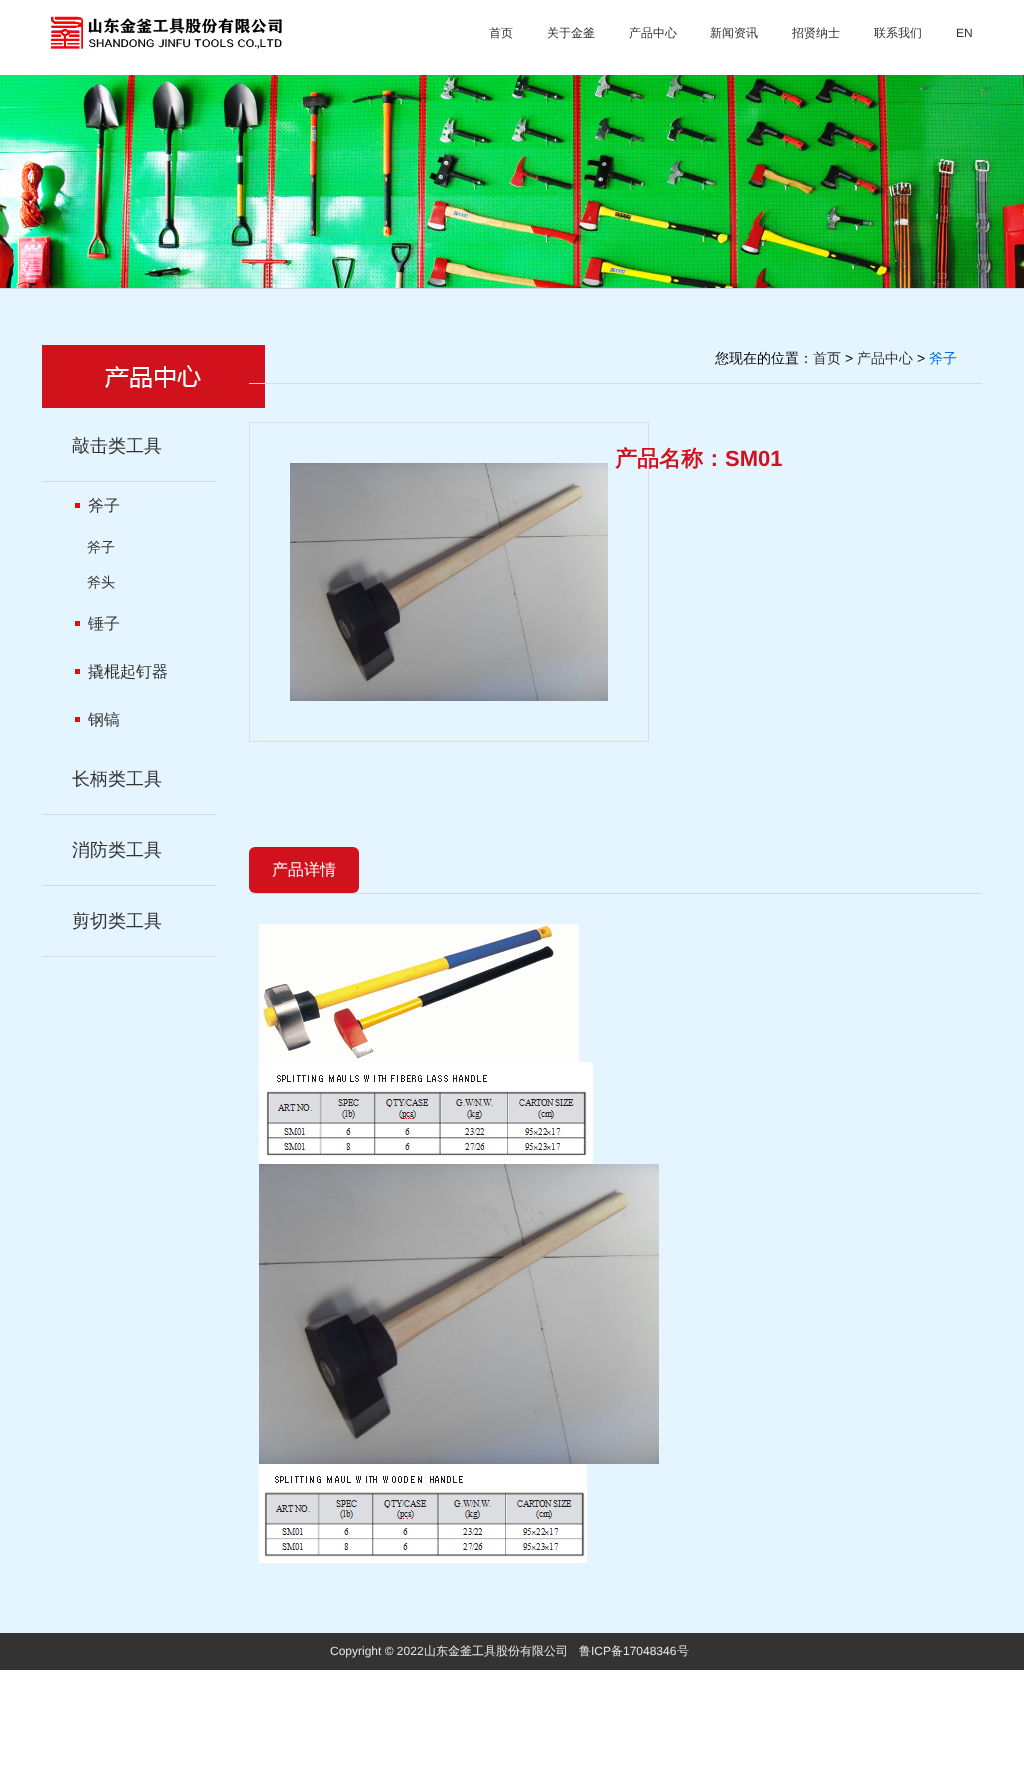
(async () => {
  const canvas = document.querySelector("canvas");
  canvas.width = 1024;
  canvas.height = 1788;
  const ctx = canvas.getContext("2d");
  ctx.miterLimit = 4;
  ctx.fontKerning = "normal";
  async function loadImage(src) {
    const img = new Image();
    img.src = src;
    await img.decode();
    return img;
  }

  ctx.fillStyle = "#ffffff";
  ctx.fillRect(0, 0, 1024, 1788);
  ctx.drawImage(await loadImage("img/1.png"), 51, 16, 231, 33);
  ctx.drawImage(await loadImage("img/2.png"), 0, 75, 1024, 213);
  ctx.fillStyle = "#e5f5ff";
  ctx.fillRect(0, 289, 1024, 1344);
  ctx.fillStyle = "#d2d9de";
  ctx.fillRect(0, 288, 1024, 1);
  ctx.drawImage(await loadImage("img/3.png"), 42, 345, 223, 63);
  for (const [x, y, w, h, color] of [
    [42, 481, 174, 1, "#d2dbe1"],
    [75, 503, 5, 5, "#ff0000"],
    [75, 621, 5, 5, "#ff0000"],
    [75, 669, 5, 5, "#ff0000"],
    [75, 717, 5, 5, "#ff0000"],
    [42, 814, 174, 1, "#d2dbe1"],
    [42, 885, 174, 1, "#d2dbe1"],
    [42, 956, 174, 1, "#d2dbe1"],
    [249, 383, 733, 1, "#cedce5"],
  ]) {
    ctx.fillStyle = color;
    ctx.fillRect(x, y, w, h);
  }
  ctx.strokeStyle = "#dddddd";
  ctx.strokeRect(249.5, 422.5, 399, 319);
  ctx.drawImage(await loadImage("img/4.png"), 290, 463, 318, 238);
  ctx.fillRect(249, 893, 733, 1);
  ctx.fillStyle = "#d1111b";
  ctx.beginPath();
  ctx.roundRect(249, 847, 110, 46, 6);
  ctx.fill();
  ctx.drawImage(await loadImage("img/5.png"), 259, 924, 320, 138);
  ctx.drawImage(await loadImage("img/6.png"), 259, 1062, 334, 102);
  ctx.drawImage(await loadImage("img/7.png"), 259, 1164, 400, 300);
  ctx.drawImage(await loadImage("img/8.png"), 259, 1464, 328, 99);
  ctx.fillStyle = "#333333";
  ctx.fillRect(0, 1633, 1024, 37);
  ctx.font = "500 12px WenQuanYi Zen Hei";
  for (const [text, x, y] of [
    ["首页", 489, 37],
    ["关于金釜", 547, 37],
    ["产品中心", 629, 37],
    ["新闻资讯", 710, 37],
    ["招贤纳士", 792, 37],
    ["联系我们", 874, 37],
  ]) {
    ctx.fillText(text, x, y);
  }
  ctx.font = "12px Liberation Sans";
  ctx.fillText("EN", 956, 37);
  ctx.font = "500 18px WenQuanYi Zen Hei";
  ctx.fillText("敲击类工具", 72, 452);
  ctx.font = "500 16px WenQuanYi Zen Hei";
  ctx.fillText("斧子", 88, 511);
  ctx.font = "500 14px WenQuanYi Zen Hei";
  ctx.fillText("斧子", 87, 552);
  ctx.fillText("斧头", 87, 587);
  ctx.font = "500 16px WenQuanYi Zen Hei";
  for (const [text, x, y] of [
    ["锤子", 88, 629],
    ["撬棍起钉器", 88, 677],
    ["钢镐", 88, 725],
  ]) {
    ctx.fillText(text, x, y);
  }
  ctx.font = "500 18px WenQuanYi Zen Hei";
  for (const [text, x, y] of [
    ["长柄类工具", 72, 785],
    ["消防类工具", 72, 856],
    ["剪切类工具", 72, 927],
  ]) {
    ctx.fillText(text, x, y);
  }
  ctx.font = "500 14px WenQuanYi Zen Hei";
  ctx.fillStyle = "#000000";
  ctx.fillText("您现在的位置：", 715, 363);
  ctx.fillStyle = "#333333";
  ctx.fillText("首页", 813, 363);
  ctx.font = "14px Liberation Sans";
  ctx.fillStyle = "#000000";
  ctx.fillText(">", 845, 363);
  ctx.font = "500 14px WenQuanYi Zen Hei";
  ctx.fillStyle = "#333333";
  ctx.fillText("产品中心", 857, 363);
  ctx.font = "14px Liberation Sans";
  ctx.fillStyle = "#000000";
  ctx.fillText(">", 917, 363);
  ctx.font = "500 14px WenQuanYi Zen Hei";
  ctx.fillStyle = "#026ce3";
  ctx.fillText("斧子", 929, 363);
  ctx.font = "bold 22px WenQuanYi Zen Hei";
  ctx.fillStyle = "#d1111b";
  ctx.fillText("产品名称：", 615, 466);
  ctx.font = "bold 22px Liberation Sans";
  ctx.fillText("SM01", 725, 466);
  ctx.font = "500 16px WenQuanYi Zen Hei";
  ctx.fillStyle = "#ffffff";
  ctx.fillText("产品详情", 272, 875);
  ctx.font = "12px Liberation Sans";
  ctx.fillStyle = "#e5e5e5";
  ctx.fillText("Copyright © 2022", 330, 1655);
  ctx.font = "500 12px WenQuanYi Zen Hei";
  ctx.fillText("山东金釜工具股份有限公司", 424, 1655);
  ctx.fillText("鲁", 579, 1655);
  ctx.font = "12px Liberation Sans";
  ctx.fillText("ICP", 591, 1655);
  ctx.font = "500 12px WenQuanYi Zen Hei";
  ctx.fillText("备", 611, 1655);
  ctx.font = "12px Liberation Sans";
  ctx.fillText("17048346", 623, 1655);
  ctx.font = "500 12px WenQuanYi Zen Hei";
  ctx.fillText("号", 677, 1655);
})();
